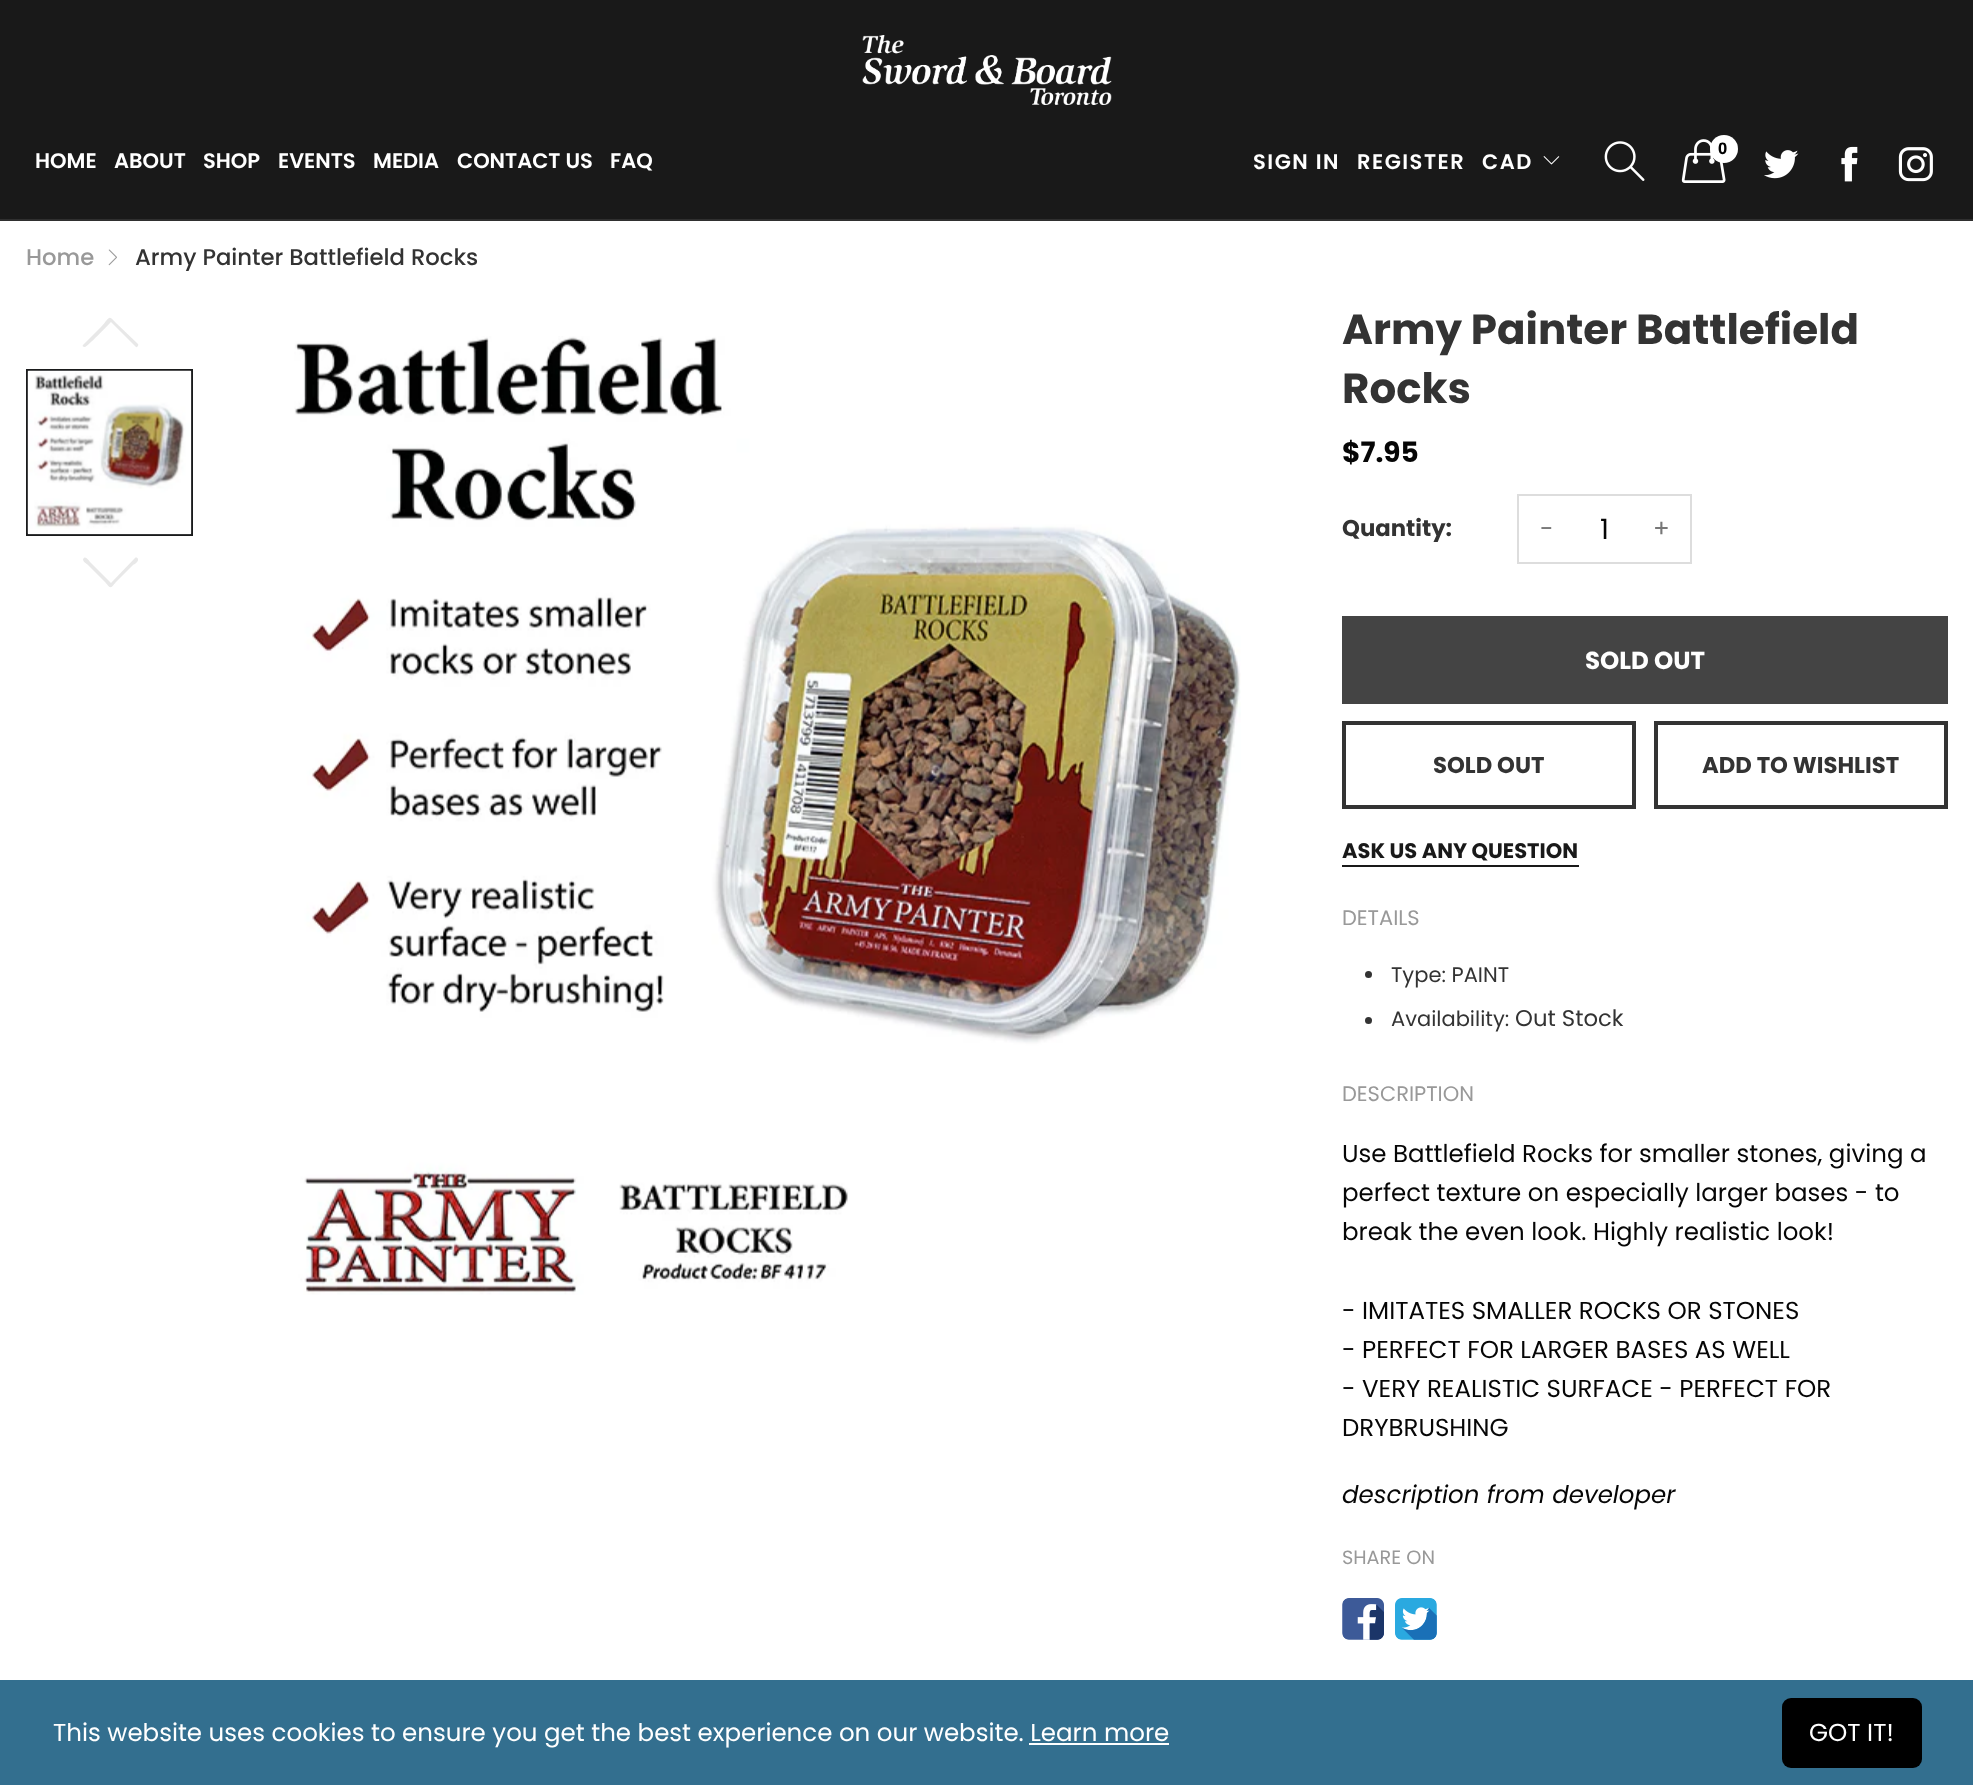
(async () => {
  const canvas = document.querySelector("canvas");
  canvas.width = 1973;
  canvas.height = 1785;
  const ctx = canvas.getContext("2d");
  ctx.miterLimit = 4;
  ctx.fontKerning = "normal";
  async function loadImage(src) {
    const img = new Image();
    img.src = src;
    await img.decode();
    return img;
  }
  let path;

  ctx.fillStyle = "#ffffff";
  ctx.fillRect(0, 0, 1973, 1785);
  ctx.fillStyle = "#191919";
  ctx.fillRect(0, 0, 1973, 219);
  ctx.fillStyle = "#2f2f2f";
  ctx.fillRect(0, 219, 1973, 2);
  ctx.drawImage(await loadImage("img/1.png"), 862, 35, 250, 70);
  ctx.drawImage(await loadImage("img/2.png"), 1543, 156, 17, 9);
  ctx.drawImage(await loadImage("img/3.png"), 1604, 141, 41, 40);
  ctx.drawImage(await loadImage("img/4.png"), 1681, 139, 45, 44);
  ctx.fillStyle = "#ffffff";
  ctx.beginPath();
  ctx.arc(1724, 149, 14, 0, Math.PI * 2);
  ctx.fill();
  ctx.drawImage(await loadImage("img/5.png"), 1764, 150, 35, 29);
  ctx.drawImage(await loadImage("img/6.png"), 1841, 146, 17, 36);
  ctx.drawImage(await loadImage("img/7.png"), 1898, 147, 35, 35);
  ctx.drawImage(await loadImage("img/8.png"), 108, 249, 9, 17);
  ctx.fillStyle = "#e8e8e8";
  path = new Path2D("M83 345C82 346 83 347 85 347C87 347 108 325 111 322L136 347C137 348 139 345 138 344L116 323C108 314 110 317 101 327Z");
  ctx.fill(path);
  ctx.strokeStyle = "#1a1b1c";
  ctx.lineWidth = 2;
  ctx.strokeRect(27, 370, 165, 165);
  ctx.drawImage(await loadImage("img/9.png"), 27, 370, 165, 165);
  path = new Path2D("M83 559L84 558C86 556 90 562 90 562L111 583L135 558C136 557 138 558 138 559C139 562 133 565 133 565L116 582C110 589 111 589 105 582L88 565C86 563 83 562 83 559Z");
  ctx.fill(path);
  ctx.drawImage(await loadImage("img/10.png"), 294, 336, 947, 959);
  ctx.strokeStyle = "#dddddd";
  ctx.strokeRect(1518, 495, 173, 68);
  ctx.fillStyle = "#444444";
  ctx.fillRect(1342, 616, 606, 88);
  ctx.strokeStyle = "#333333";
  ctx.lineWidth = 4;
  ctx.strokeRect(1344, 723, 290, 84);
  ctx.strokeRect(1656, 723, 290, 84);
  ctx.fillStyle = "#191919";
  ctx.fillRect(1342, 865, 237, 2);
  ctx.fillStyle = "#333333";
  ctx.beginPath();
  ctx.arc(1368.5, 974.5, 3.5, 0, Math.PI * 2);
  ctx.fill();
  ctx.beginPath();
  ctx.arc(1368.5, 1020.5, 3.5, 0, Math.PI * 2);
  ctx.fill();
  ctx.drawImage(await loadImage("img/11.png"), 1342, 1598, 42, 42);
  ctx.drawImage(await loadImage("img/12.png"), 1395, 1598, 42, 42);
  ctx.fillStyle = "#336f8f";
  ctx.fillRect(0, 1680, 1973, 105);
  ctx.fillStyle = "#ffffff";
  ctx.fillRect(1029, 1743, 140, 2);
  ctx.fillStyle = "#000000";
  ctx.beginPath();
  ctx.roundRect(1782, 1698, 140, 70, 9);
  ctx.fill();
  ctx.font = "600 21px Poppins";
  ctx.fillStyle = "#ffffff";
  for (const [text, x, y] of [
    ["HOME", 35, 168],
    ["ABOUT", 114, 168],
    ["SHOP", 203, 168],
    ["EVENTS", 278, 168],
    ["MEDIA", 373, 168],
    ["CONTACT US", 457, 168],
    ["FAQ", 610, 168],
  ]) {
    ctx.fillText(text, x, y);
  }
  ctx.letterSpacing = "1.5px";
  for (const [text, x, y] of [
    ["SIGN IN", 1253, 169],
    ["REGISTER", 1357, 169],
    ["CAD", 1482, 169],
  ]) {
    ctx.fillText(text, x, y);
  }
  ctx.font = "bold 16px Open Sans";
  ctx.fillStyle = "#000000";
  ctx.fillText("0", 1718, 154);
  ctx.letterSpacing = "0px";
  ctx.font = "500 22.75px Poppins";
  ctx.fillStyle = "#999999";
  ctx.fillText("Home", 26, 265);
  ctx.fillStyle = "#333333";
  ctx.fillText("Army Painter Battlefield Rocks", 135, 265);
  ctx.font = "bold 42px Poppins";
  ctx.fillText("Army Painter Battlefield", 1342, 344);
  ctx.fillText("Rocks", 1342, 403);
  ctx.font = "bold 28px Poppins";
  ctx.fillStyle = "#060606";
  ctx.fillText("$7.95", 1342, 462);
  ctx.font = "bold 22.75px Poppins";
  ctx.fillStyle = "#333333";
  ctx.fillText("Quantity:", 1342, 536);
  ctx.font = "24.5px Poppins";
  ctx.fillStyle = "#777777";
  ctx.fillText("-", 1540, 537);
  ctx.font = "28px Poppins";
  ctx.fillStyle = "#060606";
  ctx.fillText("1", 1600, 539);
  ctx.font = "24.5px Poppins";
  ctx.fillStyle = "#777777";
  ctx.fillText("+", 1653, 537);
  ctx.font = "bold 24.5px Poppins";
  ctx.fillStyle = "#ffffff";
  ctx.fillText("SOLD OUT", 1585, 669);
  ctx.font = "bold 22.75px Poppins";
  ctx.fillStyle = "#333333";
  ctx.fillText("SOLD OUT", 1433, 773);
  ctx.fillText("ADD TO WISHLIST", 1702, 773);
  ctx.font = "bold 21px Poppins";
  ctx.fillStyle = "#191919";
  ctx.fillText("ASK US ANY QUESTION", 1342, 858);
  ctx.font = "21px Poppins";
  ctx.fillStyle = "#999999";
  ctx.fillText("DETAILS", 1342, 925);
  ctx.fillStyle = "#333333";
  ctx.fillText("Type: PAINT", 1391, 982);
  ctx.fillText("Availability:", 1391, 1026);
  ctx.font = "22.75px Poppins";
  ctx.fillText("Out Stock", 1515, 1026);
  ctx.font = "21px Poppins";
  ctx.fillStyle = "#999999";
  ctx.fillText("DESCRIPTION", 1342, 1101);
  ctx.font = "24.5px Poppins";
  ctx.fillStyle = "#060606";
  for (const [text, x, y] of [
    ["Use Battlefield Rocks for smaller stones, giving a", 1342, 1162],
    ["perfect texture on especially larger bases - to", 1342, 1201],
    ["break the even look. Highly realistic look!", 1342, 1240],
    ["- IMITATES SMALLER ROCKS OR STONES", 1342, 1319],
    ["- PERFECT FOR LARGER BASES AS WELL", 1342, 1358],
    ["- VERY REALISTIC SURFACE - PERFECT FOR", 1342, 1397],
    ["DRYBRUSHING", 1342, 1436],
  ]) {
    ctx.fillText(text, x, y);
  }
  ctx.font = "italic 24.5px Poppins";
  ctx.fillText("description from developer", 1342, 1503);
  ctx.font = "19.25px Poppins";
  ctx.fillStyle = "#999999";
  ctx.fillText("SHARE ON", 1342, 1564);
  ctx.font = "24.5px Poppins";
  ctx.fillStyle = "#ffffff";
  ctx.fillText("This website uses cookies to ensure you get the best experience on our website. Learn more", 53, 1741);
  ctx.fillText("GOT IT!", 1809, 1741);
})();
